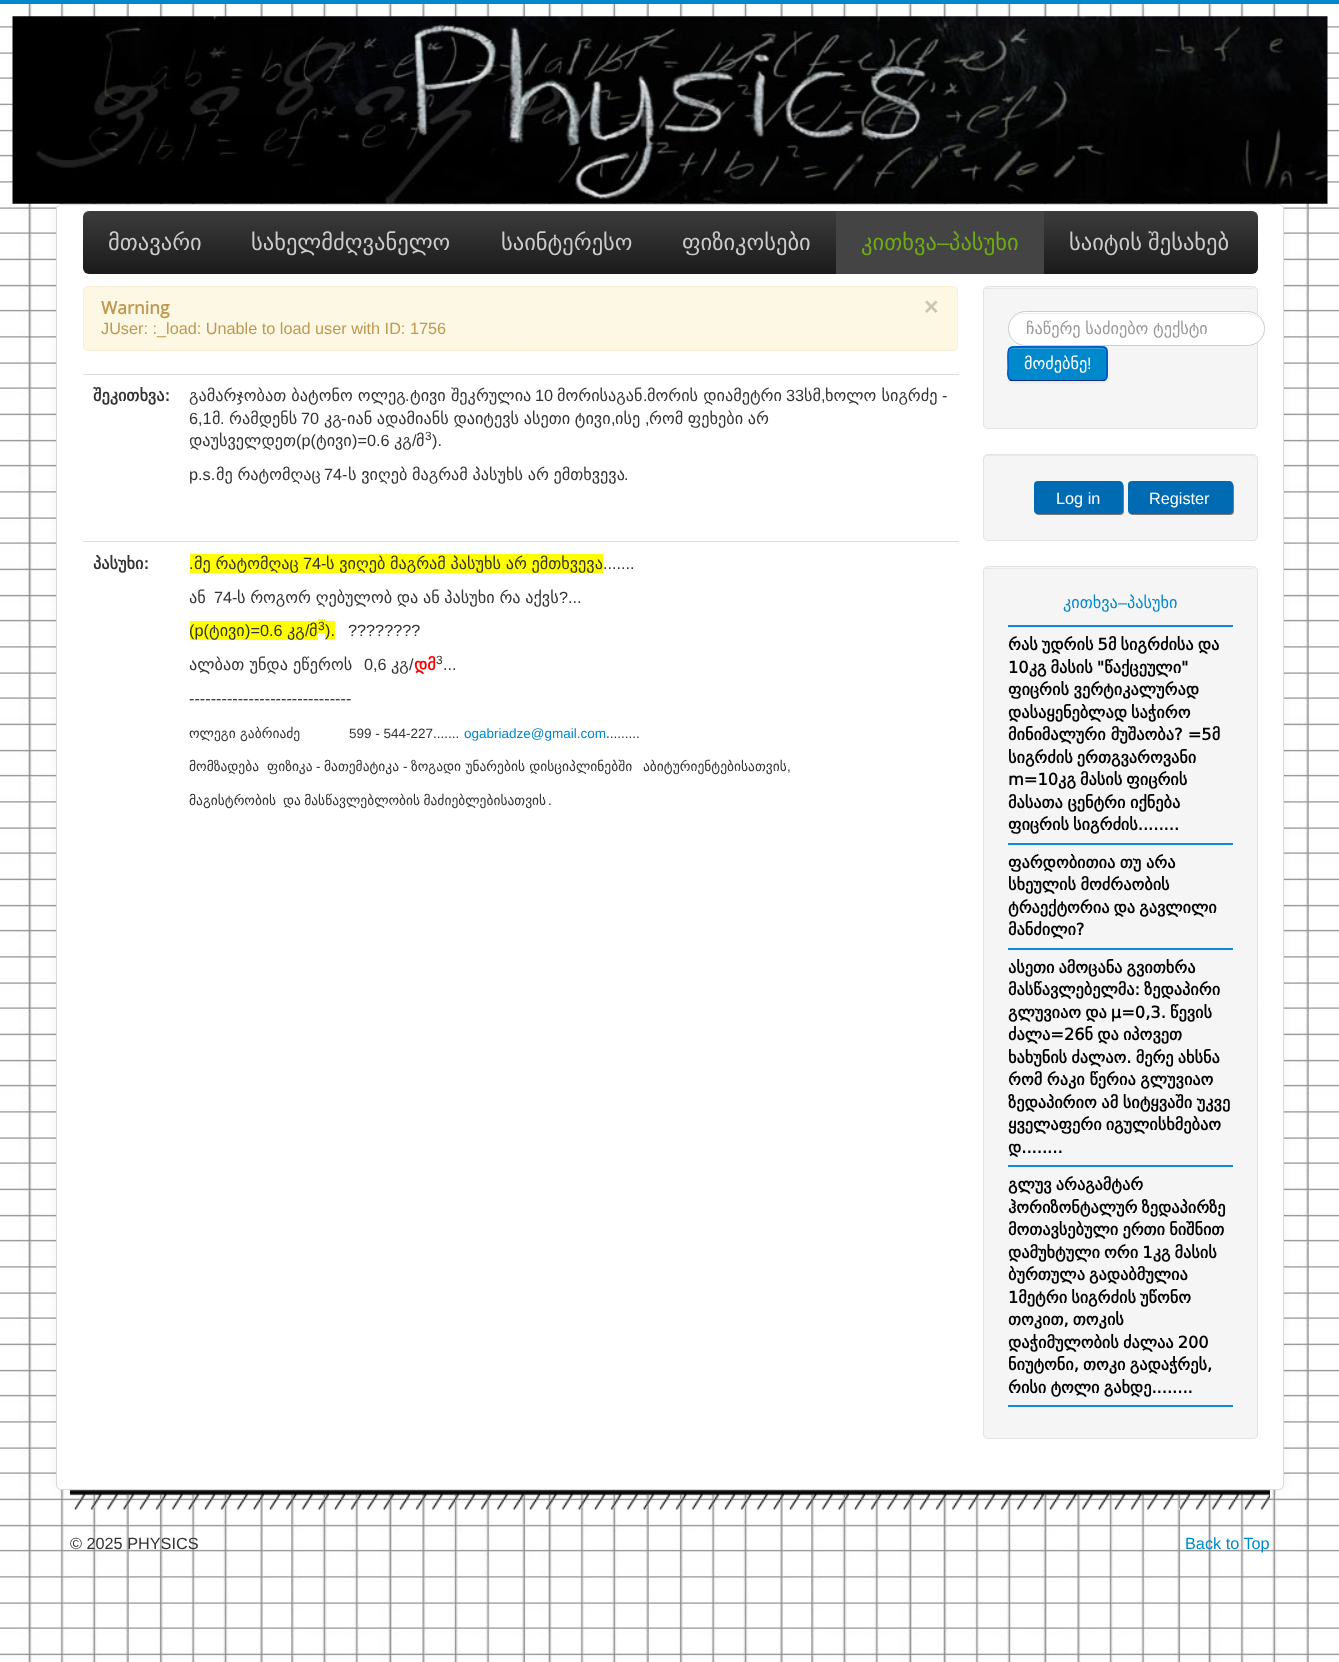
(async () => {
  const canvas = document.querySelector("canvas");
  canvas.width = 1339;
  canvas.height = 1662;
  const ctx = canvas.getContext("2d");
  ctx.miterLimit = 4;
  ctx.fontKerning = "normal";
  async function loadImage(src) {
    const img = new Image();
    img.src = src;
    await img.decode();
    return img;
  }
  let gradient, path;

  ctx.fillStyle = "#ffffff";
  ctx.fillRect(0, 0, 1339, 1662);
  ctx.drawImage(await loadImage("img/1.png"), 0, 4, 1339, 1658);
  ctx.fillStyle = "#0088cc";
  ctx.fillRect(0, 0, 1339, 4);
  ctx.drawImage(await loadImage("img/2.png"), 12, 16, 1316, 188);
  ctx.fillStyle = "rgba(0, 0, 0, 0.05)";
  ctx.filter = "blur(4px)";
  ctx.beginPath();
  ctx.roundRect(56, 204, 1228, 1286, 5);
  ctx.fill();
  ctx.filter = "none";
  ctx.drawImage(await loadImage("img/3.png"), 413, 23, 513, 177);
  ctx.fillStyle = "#ffffff";
  ctx.beginPath();
  ctx.roundRect(56, 204, 1228, 1286, 5);
  ctx.fill();
  ctx.beginPath();
  ctx.roundRect(56.5, 204.5, 1227, 1285, 4.5);
  ctx.strokeStyle = "rgba(0, 0, 0, 0.15)";
  ctx.stroke();
  gradient = ctx.createLinearGradient(670, 211, 670, 274);
  gradient.addColorStop(0, "#3c3c3c");
  gradient.addColorStop(1, "#1a1a1a");
  ctx.fillStyle = gradient;
  ctx.beginPath();
  ctx.roundRect(83, 211, 1175, 63, 6);
  ctx.fill();
  ctx.fillStyle = "#444444";
  ctx.fillRect(836, 211, 208, 63);
  ctx.fillStyle = "#fcf8e3";
  ctx.beginPath();
  ctx.roundRect(83.5, 286.5, 874, 64, 4.5);
  ctx.fill();
  ctx.strokeStyle = "#fbeed5";
  ctx.stroke();
  for (const [x, y, w, h, color] of [
    [83, 374, 876, 1, "#dddddd"],
    [83, 541, 876, 1, "#dddddd"],
    [190, 554, 413, 19, "#ffff00"],
    [190, 621, 128, 19, "#ffff00"],
    [325, 621, 10, 19, "#ffff00"],
  ]) {
    ctx.fillStyle = color;
    ctx.fillRect(x, y, w, h);
  }
  ctx.fillStyle = "#f5f5f5";
  ctx.beginPath();
  ctx.roundRect(983, 286, 275, 143, 5);
  ctx.fill();
  ctx.fillStyle = "#e9e9e9";
  path = new Path2D("M988 289H1252C1254 289 1255 289 1256 290C1255 289 1254 288 1252 288H988C986 288 985 289 984 290C985 289 986 289 988 289Z");
  ctx.fill(path);
  ctx.beginPath();
  ctx.roundRect(983.5, 286.5, 274, 142, 4.5);
  ctx.strokeStyle = "#e3e3e3";
  ctx.stroke();
  ctx.fillStyle = "#ffffff";
  ctx.beginPath();
  ctx.roundRect(1008, 311, 257, 35, 17.5);
  ctx.fill();
  ctx.fillStyle = "#ececec";
  path = new Path2D("M1025 314H1248C1256 314 1264 321 1264 330C1264 321 1257 313 1248 313H1025C1016 313 1009 321 1009 329C1009 321 1016 314 1025 314Z");
  ctx.fill(path);
  ctx.beginPath();
  ctx.roundRect(1008.5, 311.5, 256, 34, 17);
  ctx.strokeStyle = "#cccccc";
  ctx.stroke();
  ctx.fillStyle = "rgba(0, 0, 0, 0.05)";
  ctx.filter = "blur(1px)";
  ctx.beginPath();
  ctx.roundRect(1008, 348, 100, 35, 5);
  ctx.fill();
  ctx.filter = "none";
  ctx.fillStyle = "#0088cc";
  ctx.beginPath();
  ctx.roundRect(1008, 346, 100, 35, 5);
  ctx.fill();
  ctx.fillStyle = "#33a0d6";
  path = new Path2D("M1012 349H1103L1106 350C1105 349 1104 348 1102 348H1013C1012 348 1010 349 1010 350Z");
  ctx.fill(path);
  path = new Path2D("M1105.5 379.5C1105 380 1103.5 380.5 1102.5 380.5H1012.5C1011.5 380.5 1010 380 1009.5 379.5");
  ctx.strokeStyle = "#002a80";
  ctx.lineWidth = 1.2;
  ctx.stroke(path);
  path = new Path2D("M1009.5 379.5C1006.5 376.5 1008 371 1008 368C1008 344.5 1004 347 1027.5 347H1087.5C1109 347 1107 343.5 1107 364C1107 367 1108 377 1105.5 379.5");
  ctx.strokeStyle = "#0044cc";
  ctx.stroke(path);
  ctx.fillStyle = "#f5f5f5";
  ctx.beginPath();
  ctx.roundRect(983, 454, 275, 87, 5);
  ctx.fill();
  ctx.fillStyle = "#e9e9e9";
  path = new Path2D("M988 456H1252C1255 456 1256 458 1256 460C1256 457 1255 455 1252 455H988C985 455 984 457 984 460C984 458 985 456 988 456Z");
  ctx.fill(path);
  ctx.beginPath();
  ctx.roundRect(983.5, 454.5, 274, 86, 4.5);
  ctx.strokeStyle = "#e3e3e3";
  ctx.lineWidth = 1;
  ctx.stroke();
  ctx.fillStyle = "rgba(0, 0, 0, 0.5)";
  ctx.filter = "blur(0.5px)";
  ctx.beginPath();
  ctx.roundRect(1035, 483, 89, 32, 4);
  ctx.fill();
  ctx.filter = "none";
  ctx.fillStyle = "#006bb3";
  ctx.beginPath();
  ctx.roundRect(1034, 481, 89, 33, 4);
  ctx.fill();
  ctx.fillStyle = "rgba(0, 0, 0, 0.5)";
  ctx.filter = "blur(0.5px)";
  ctx.beginPath();
  ctx.roundRect(1129, 483, 105, 32, 4);
  ctx.fill();
  ctx.filter = "none";
  ctx.fillStyle = "#006bb3";
  ctx.beginPath();
  ctx.roundRect(1128, 481, 105, 33, 4);
  ctx.fill();
  ctx.fillStyle = "#f5f5f5";
  ctx.beginPath();
  ctx.roundRect(983, 566, 275, 873, 5);
  ctx.fill();
  ctx.fillStyle = "#e9e9e9";
  path = new Path2D("M988 569H1252C1254 569 1255 569 1256 570C1255 569 1254 568 1252 568H988C986 568 985 569 984 570C985 569 986 569 988 569Z");
  ctx.fill(path);
  ctx.beginPath();
  ctx.roundRect(983.5, 566.5, 274, 872, 4.5);
  ctx.stroke();
  for (const [x, y, w, h, color] of [
    [1008, 625, 225, 2, "#0f8adb"],
    [1008, 843, 225, 2, "#0f8adb"],
    [1008, 948, 225, 2, "#0f8adb"],
    [1008, 1165, 225, 2, "#0f8adb"],
    [1008, 1405, 225, 2, "#0f8adb"],
  ]) {
    ctx.fillStyle = color;
    ctx.fillRect(x, y, w, h);
  }
  ctx.drawImage(await loadImage("img/4.png"), 70, 1490, 1200, 20);
  ctx.font = "22.5px DejaVu Sans";
  ctx.fillStyle = "#cccccc";
  for (const [text, x, y] of [
    ["მთავარი", 108, 250],
    ["სახელმძღვანელო", 251, 250],
    ["საინტერესო", 501, 250],
    ["ფიზიკოსები", 682, 250],
  ]) {
    ctx.fillText(text, x, y);
  }
  ctx.fillStyle = "#6dac15";
  ctx.fillText("კითხვა", 861, 250);
  ctx.font = "22.5px Liberation Sans";
  ctx.fillText("–", 937, 250);
  ctx.font = "22.5px DejaVu Sans";
  ctx.fillText("პასუხი", 949, 250);
  ctx.wordSpacing = "-1px";
  ctx.fillStyle = "#cccccc";
  ctx.fillText("საიტის შესახებ", 1069, 250);
  ctx.wordSpacing = "0px";
  ctx.font = "bold 17.5px Open Sans";
  ctx.fillStyle = "#c09853";
  ctx.fillText("Warning", 101, 314);
  ctx.font = "bold 25px Liberation Sans";
  ctx.fillStyle = "#cac6b6";
  ctx.fillText("×", 924, 315);
  ctx.font = "16.25px Liberation Sans";
  ctx.fillStyle = "#c09853";
  ctx.fillText("JUser: :_load: Unable to load user with ID: 1756", 101, 334);
  ctx.font = "bold 16.25px DejaVu Sans";
  ctx.fillStyle = "#333333";
  ctx.fillText("შეკითხვა:", 93, 401);
  ctx.font = "16.25px DejaVu Sans";
  ctx.fillText("გამარჯობათ ბატონო ოლეგ", 189, 401);
  ctx.fillText("ტივი შეკრულია", 410, 401);
  ctx.font = "16.25px Liberation Sans";
  ctx.fillText("10", 535, 401);
  ctx.font = "16.25px DejaVu Sans";
  ctx.fillText("მორისაგან", 557, 401);
  ctx.fillText("მორის დიამეტრი", 647, 401);
  ctx.font = "16.25px Liberation Sans";
  ctx.fillText("33", 786, 401);
  ctx.font = "16.25px DejaVu Sans";
  ctx.fillText("სმ", 804, 401);
  ctx.fillText("ხოლო სიგრძე", 825, 401);
  ctx.font = "16.25px Liberation Sans";
  for (const [text, x, y] of [
    ["-", 942, 401],
    [".", 405, 401],
    [".", 643, 401],
    [",", 821, 401],
    ["6,1", 189, 424],
  ]) {
    ctx.fillText(text, x, y);
  }
  ctx.font = "16.25px DejaVu Sans";
  ctx.fillText("მ", 212, 424);
  ctx.fillText("რამდენს", 229, 424);
  ctx.font = "16.25px Liberation Sans";
  ctx.fillText("70", 301, 424);
  ctx.font = "16.25px DejaVu Sans";
  ctx.fillText("კგ", 324, 424);
  ctx.font = "16.25px Liberation Sans";
  ctx.fillText("-", 341, 424);
  ctx.wordSpacing = "-0.5px";
  ctx.font = "16.25px DejaVu Sans";
  ctx.fillText("იან ადამიანს დაიტევს ასეთი ტივი", 347, 424);
  ctx.wordSpacing = "0px";
  ctx.fillText("ისე", 615, 424);
  ctx.wordSpacing = "-0.5px";
  ctx.fillText("რომ ფეხები არ", 649, 424);
  ctx.wordSpacing = "0px";
  ctx.font = "16.25px Liberation Sans";
  for (const [text, x, y] of [
    [".", 220, 424],
    [",", 611, 424],
    [",", 645, 424],
  ]) {
    ctx.fillText(text, x, y);
  }
  ctx.font = "16.25px DejaVu Sans";
  ctx.fillText("დაუსველდეთ", 189, 446);
  ctx.font = "16.25px Liberation Sans";
  ctx.fillText("(p(", 296, 446);
  ctx.font = "16.25px DejaVu Sans";
  ctx.fillText("ტივი", 316, 446);
  ctx.font = "16.25px Liberation Sans";
  ctx.fillText(")=0.6", 352, 446);
  ctx.font = "16.25px DejaVu Sans";
  ctx.fillText("კგ", 394, 446);
  ctx.font = "16.25px Liberation Sans";
  ctx.fillText("/", 412, 446);
  ctx.font = "16.25px DejaVu Sans";
  ctx.fillText("მ", 416, 446);
  ctx.font = "12px Liberation Sans";
  ctx.fillText("3", 425, 440);
  ctx.font = "16.25px Liberation Sans";
  ctx.fillText(").", 432, 446);
  ctx.fillText("p.s.", 189, 480);
  ctx.wordSpacing = "-0.5px";
  ctx.font = "16.25px DejaVu Sans";
  ctx.fillText("მე რატომღაც", 216, 480);
  ctx.wordSpacing = "0px";
  ctx.font = "16.25px Liberation Sans";
  ctx.fillText("74-", 324, 480);
  ctx.wordSpacing = "-0.5px";
  ctx.font = "16.25px DejaVu Sans";
  ctx.fillText("ს ვიღებ მაგრამ პასუხს არ ემთხვევა", 348, 480);
  ctx.wordSpacing = "0px";
  ctx.font = "16.25px Liberation Sans";
  ctx.fillText(".", 624, 480);
  ctx.font = "bold 16.25px DejaVu Sans";
  ctx.fillText("პასუხი:", 93, 569);
  ctx.font = "16.25px Liberation Sans";
  ctx.fillText(".", 189, 569);
  ctx.wordSpacing = "-0.5px";
  ctx.font = "16.25px DejaVu Sans";
  ctx.fillText("მე რატომღაც", 194, 569);
  ctx.wordSpacing = "0px";
  ctx.font = "16.25px Liberation Sans";
  ctx.fillText("74-", 303, 569);
  ctx.wordSpacing = "-0.5px";
  ctx.font = "16.25px DejaVu Sans";
  ctx.fillText("ს ვიღებ მაგრამ პასუხს არ ემთხვევა", 326, 569);
  ctx.wordSpacing = "0px";
  ctx.font = "16.25px Liberation Sans";
  ctx.fillText(".......", 603, 569);
  ctx.font = "16.25px DejaVu Sans";
  ctx.fillText("ან", 189, 603);
  ctx.font = "16.25px Liberation Sans";
  ctx.fillText("74-", 214, 603);
  ctx.wordSpacing = "-0.5px";
  ctx.font = "16.25px DejaVu Sans";
  ctx.fillText("ს როგორ ღებულობ და ან პასუხი რა აქვს", 237, 603);
  ctx.wordSpacing = "0px";
  ctx.font = "16.25px Liberation Sans";
  ctx.fillText("?...", 559, 603);
  ctx.fillText("(p(", 189, 636);
  ctx.font = "16.25px DejaVu Sans";
  ctx.fillText("ტივი", 209, 636);
  ctx.font = "16.25px Liberation Sans";
  ctx.fillText(")=0.6", 245, 636);
  ctx.font = "16.25px DejaVu Sans";
  ctx.fillText("კგ", 287, 636);
  ctx.font = "16.25px Liberation Sans";
  ctx.fillText("/", 305, 636);
  ctx.font = "16.25px DejaVu Sans";
  ctx.fillText("მ", 309, 636);
  ctx.font = "16.25px Liberation Sans";
  ctx.fillText(").", 325, 636);
  ctx.fillStyle = "#ffff00";
  ctx.fillRect(318, 619, 7, 14);
  ctx.font = "12px Liberation Sans";
  ctx.fillStyle = "#333333";
  ctx.fillText("3", 318, 630);
  ctx.font = "16.25px Liberation Sans";
  ctx.fillText("????????", 348, 636);
  ctx.font = "16.25px DejaVu Sans";
  ctx.fillText("ალბათ უნდა ეწეროს", 189, 670);
  ctx.font = "16.25px Liberation Sans";
  ctx.fillText("0,6", 364, 670);
  ctx.font = "16.25px DejaVu Sans";
  ctx.fillText("კგ", 391, 670);
  ctx.font = "16.25px Liberation Sans";
  ctx.fillText("/", 409, 670);
  ctx.font = "bold 16.25px DejaVu Sans";
  ctx.fillStyle = "#ff0000";
  ctx.fillText("დმ", 414, 670);
  ctx.font = "12px Liberation Sans";
  ctx.fillStyle = "#333333";
  ctx.fillText("3", 436, 664);
  ctx.font = "16.25px Liberation Sans";
  ctx.fillText("...", 443, 670);
  ctx.fillText("------------------------------", 189, 704);
  ctx.font = "13.5px DejaVu Sans";
  ctx.fillText("ოლეგი", 189, 738);
  ctx.fillText("გაბრიაძე", 240, 738);
  ctx.font = "13.5px Liberation Sans";
  ctx.fillText("599 - 544-227.......", 349, 738);
  ctx.fillStyle = "#0088cc";
  ctx.fillText("ogabriadze@gmail.com", 464, 738);
  ctx.fillStyle = "#333333";
  ctx.fillText(".........", 606, 738);
  ctx.font = "13.5px DejaVu Sans";
  ctx.fillText("მომზადება", 189, 771);
  ctx.fillText("ფიზიკა", 267, 771);
  ctx.font = "13.5px Liberation Sans";
  ctx.fillText("-", 316, 771);
  ctx.font = "13.5px DejaVu Sans";
  ctx.fillText("მათემატიკა", 324, 771);
  ctx.font = "13.5px Liberation Sans";
  ctx.fillText("-", 403, 771);
  ctx.font = "13.5px DejaVu Sans";
  ctx.fillText("ზოგადი უნარების დისციპლინებში", 411, 771);
  ctx.fillText("აბიტურიენტებისათვის", 643, 771);
  ctx.font = "13.5px Liberation Sans";
  ctx.fillText(",", 787, 771);
  ctx.font = "13.5px DejaVu Sans";
  ctx.fillText("მაგისტრობის", 189, 805);
  ctx.wordSpacing = "-1px";
  ctx.fillText("და მასწავლებლობის მაძიებლებისათვის", 283, 805);
  ctx.wordSpacing = "0px";
  ctx.font = "13.5px Liberation Sans";
  ctx.fillText(".", 548, 805);
  ctx.wordSpacing = "-0.5px";
  ctx.font = "16.25px DejaVu Sans";
  ctx.fillStyle = "#999999";
  ctx.fillText("ჩაწერე საძიებო ტექსტი", 1026, 334);
  ctx.wordSpacing = "0px";
  ctx.fillStyle = "#ffffff";
  ctx.fillText("მოძებნე", 1024, 369);
  ctx.font = "16.25px Liberation Sans";
  for (const [text, x, y] of [
    ["!", 1087, 369],
    ["Log in", 1056, 504],
    ["Register", 1149, 504],
  ]) {
    ctx.fillText(text, x, y);
  }
  ctx.font = "16.25px DejaVu Sans";
  ctx.fillStyle = "#0088cc";
  ctx.fillText("კითხვა", 1063, 608);
  ctx.font = "16.25px Liberation Sans";
  ctx.fillText("–", 1118, 608);
  ctx.font = "16.25px DejaVu Sans";
  ctx.fillText("პასუხი", 1127, 608);
  ctx.wordSpacing = "-1px";
  ctx.font = "bold 16.25px DejaVu Sans";
  ctx.fillStyle = "#000000";
  ctx.fillText("რას უდრის 5მ სიგრძისა და", 1008, 650);
  ctx.fillText("10კგ მასის \"წაქცეული\"", 1008, 673);
  ctx.wordSpacing = "-0.5px";
  ctx.fillText("ფიცრის ვერტიკალურად", 1008, 695);
  ctx.wordSpacing = "-1px";
  ctx.fillText("დასაყენებლად საჭირო", 1008, 718);
  ctx.wordSpacing = "0px";
  ctx.fillText("მინიმალური მუშაობა? =5მ", 1008, 740);
  ctx.wordSpacing = "-1px";
  ctx.fillText("სიგრძის ერთგვაროვანი", 1008, 763);
  ctx.fillText("m=10კგ მასის ფიცრის", 1008, 785);
  ctx.wordSpacing = "-0.5px";
  ctx.fillText("მასათა ცენტრი იქნება", 1008, 808);
  ctx.wordSpacing = "-1px";
  ctx.fillText("ფიცრის სიგრძის........", 1008, 830);
  ctx.wordSpacing = "-0.5px";
  ctx.fillText("ფარდობითია თუ არა", 1008, 868);
  ctx.fillText("სხეულის მოძრაობის", 1008, 890);
  ctx.wordSpacing = "-1px";
  ctx.fillText("ტრაექტორია და გავლილი", 1008, 913);
  ctx.wordSpacing = "0px";
  ctx.fillText("მანძილი?", 1008, 935);
  ctx.wordSpacing = "-1px";
  for (const [text, x, y] of [
    ["ასეთი ამოცანა გვითხრა", 1008, 973],
    ["მასწავლებელმა: ზედაპირი", 1008, 995],
    ["გლუვიაო და µ=0,3. წევის", 1008, 1018],
    ["ძალა=26ნ და იპოვეთ", 1008, 1040],
    ["ხახუნის ძალაო. მერე ახსნა", 1008, 1063],
  ]) {
    ctx.fillText(text, x, y);
  }
  ctx.wordSpacing = "-0.5px";
  ctx.fillText("რომ რაკი წერია გლუვიაო", 1008, 1085);
  ctx.fillText("ზედაპირიო ამ სიტყვაში უკვე", 1008, 1108);
  ctx.wordSpacing = "-1px";
  ctx.fillText("ყველაფერი იგულისხმებაო", 1008, 1130);
  ctx.wordSpacing = "0px";
  ctx.fillText("დ........", 1008, 1153);
  ctx.wordSpacing = "-1px";
  for (const [text, x, y] of [
    ["გლუვ არაგამტარ", 1008, 1190],
    ["ჰორიზონტალურ ზედაპირზე", 1008, 1213],
    ["მოთავსებული ერთი ნიშნით", 1008, 1235],
    ["დამუხტული ორი 1კგ მასის", 1008, 1258],
    ["ბურთულა გადაბმულია", 1008, 1280],
    ["1მეტრი სიგრძის უწონო", 1008, 1303],
    ["თოკით, თოკის", 1008, 1325],
    ["დაჭიმულობის ძალაა 200", 1008, 1348],
    ["ნიუტონი, თოკი გადაჭრეს,", 1008, 1370],
    ["რისი ტოლი გახდე........", 1008, 1393],
  ]) {
    ctx.fillText(text, x, y);
  }
  ctx.wordSpacing = "0px";
  ctx.font = "16.25px Liberation Sans";
  ctx.fillStyle = "#333333";
  ctx.fillText("© 2025 PHYSICS", 70, 1549);
  ctx.fillStyle = "#0088cc";
  ctx.fillText("Back to Top", 1185, 1549);
})();
